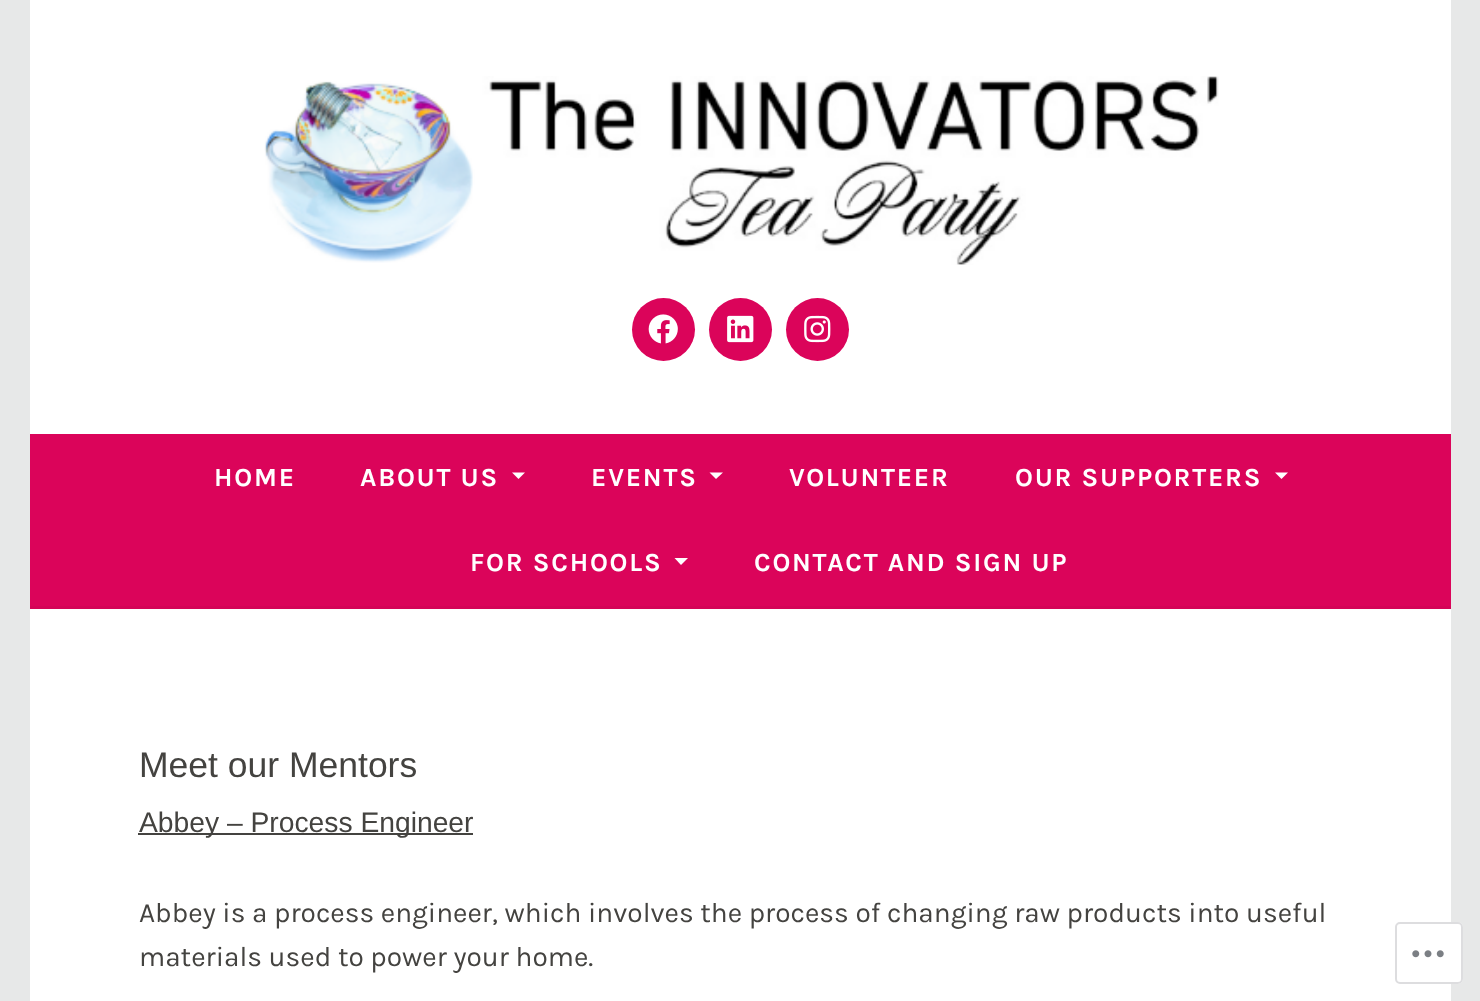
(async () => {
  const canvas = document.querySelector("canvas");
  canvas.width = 1480;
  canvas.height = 1001;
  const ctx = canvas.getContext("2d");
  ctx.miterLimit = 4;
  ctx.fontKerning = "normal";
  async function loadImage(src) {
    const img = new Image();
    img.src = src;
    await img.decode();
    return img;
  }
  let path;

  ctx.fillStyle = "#e7e8e8";
  ctx.fillRect(0, 0, 1480, 1001);
  ctx.fillStyle = "#ffffff";
  ctx.fillRect(30, 0, 1421, 434);
  ctx.drawImage(await loadImage("img/1.png"), 264, 76, 955, 189);
  ctx.fillStyle = "#db045a";
  ctx.beginPath();
  ctx.arc(663.5, 329.5, 31.5, 0, Math.PI * 2);
  ctx.fill();
  ctx.drawImage(await loadImage("img/2.png"), 648, 314, 30, 30);
  ctx.beginPath();
  ctx.arc(740.5, 329.5, 31.5, 0, Math.PI * 2);
  ctx.fill();
  ctx.drawImage(await loadImage("img/3.png"), 727, 315, 27, 28);
  ctx.beginPath();
  ctx.arc(817.5, 329.5, 31.5, 0, Math.PI * 2);
  ctx.fill();
  ctx.drawImage(await loadImage("img/4.png"), 804, 315, 27, 28);
  ctx.fillRect(30, 434, 1421, 172);
  ctx.fillStyle = "#d40457";
  ctx.fillRect(30, 606, 1421, 3);
  ctx.fillStyle = "#ffffff";
  path = new Path2D("M512 472.5H525L518.5 479Z");
  ctx.fill(path);
  path = new Path2D("M709.5 472.5H723L716 479Z");
  ctx.fill(path);
  path = new Path2D("M1275 472.5H1288L1281.5 479Z");
  ctx.fill(path);
  path = new Path2D("M674.5 558H688L681 565Z");
  ctx.fill(path);
  ctx.fillRect(30, 609, 1421, 392);
  ctx.fillStyle = "#444340";
  ctx.fillRect(138, 833, 335, 2);
  ctx.fillStyle = "rgba(255, 255, 255, 0.98)";
  ctx.beginPath();
  ctx.roundRect(1395, 922, 68, 62, 5);
  ctx.fill();
  ctx.beginPath();
  ctx.roundRect(1396, 923, 66, 60, 4);
  ctx.strokeStyle = "rgba(220, 220, 222, 0.98)";
  ctx.lineWidth = 2;
  ctx.stroke();
  ctx.drawImage(await loadImage("img/5.png"), 1412, 950, 32, 8);
  ctx.letterSpacing = "1.75px";
  ctx.font = "bold 26.25px Karla";
  ctx.fillStyle = "#ffffff";
  for (const [text, x, y] of [
    ["HOME", 214, 486],
    ["ABOUT US", 360, 486],
    ["EVENTS", 591, 486],
    ["VOLUNTEER", 789, 486],
    ["OUR SUPPORTERS", 1015, 486],
    ["FOR SCHOOLS", 470, 571],
    ["CONTACT AND SIGN UP", 754, 571],
  ]) {
    ctx.fillText(text, x, y);
  }
  ctx.letterSpacing = "0px";
  ctx.font = "35.5px Arimo";
  ctx.fillStyle = "#444340";
  ctx.fillText("Meet our Mentors", 139, 777);
  ctx.font = "28.25px Arimo";
  ctx.fillText("Abbey – Process Engineer", 139, 832);
  ctx.font = "28px Karla";
  ctx.fillText("Abbey is a process engineer, which involves the process of changing raw products into useful", 139, 922);
  ctx.fillText("materials used to power your home.", 139, 966);
})();
